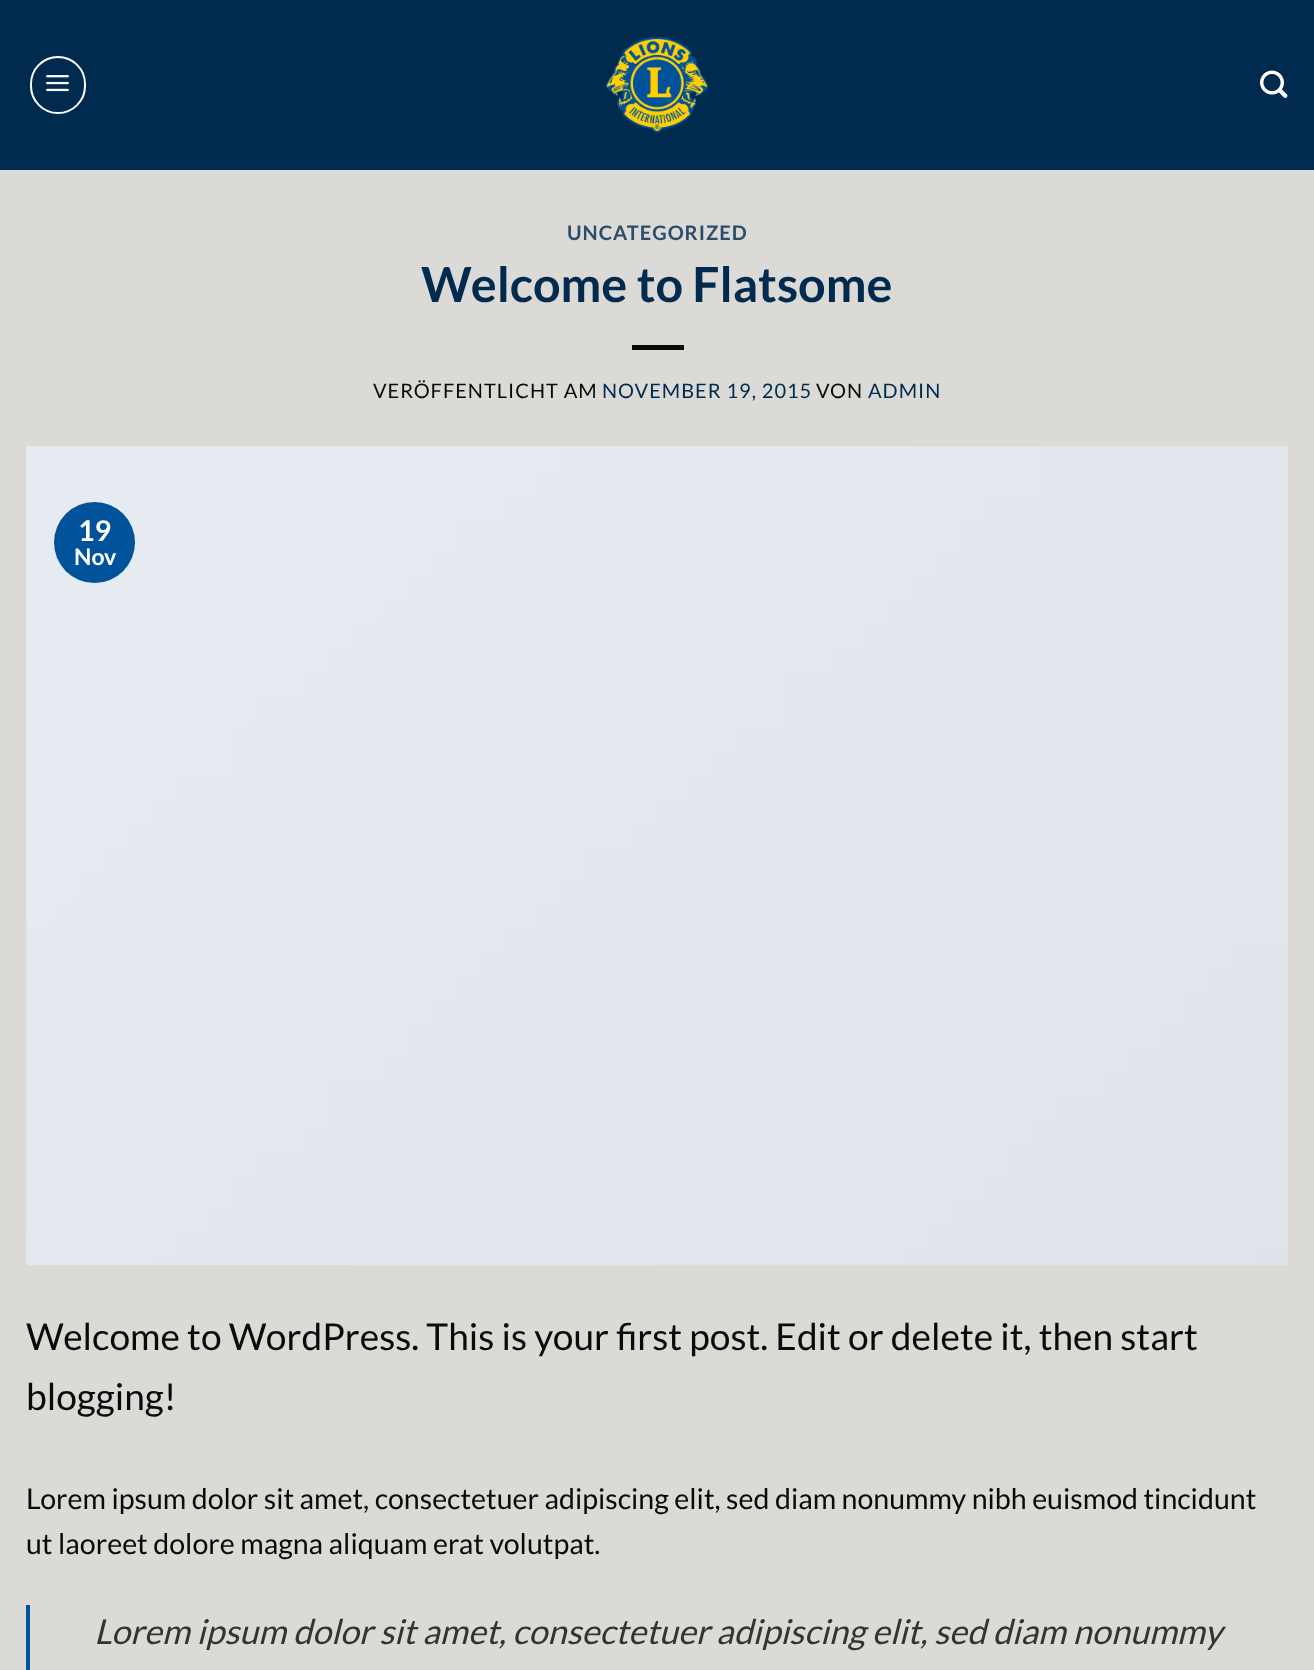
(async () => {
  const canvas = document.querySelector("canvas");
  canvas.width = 1314;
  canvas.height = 1670;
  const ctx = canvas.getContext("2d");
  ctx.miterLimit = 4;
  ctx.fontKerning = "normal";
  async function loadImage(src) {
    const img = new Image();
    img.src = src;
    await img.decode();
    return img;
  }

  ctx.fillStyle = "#dcdad7";
  ctx.fillRect(0, 0, 1314, 1670);
  ctx.fillStyle = "#002a4e";
  ctx.fillRect(0, 0, 1314, 170);
  ctx.beginPath();
  ctx.roundRect(31, 57, 54, 56, 27);
  ctx.strokeStyle = "#ffffff";
  ctx.lineWidth = 2;
  ctx.stroke();
  ctx.drawImage(await loadImage("img/1.png"), 46, 75, 23, 17);
  ctx.drawImage(await loadImage("img/2.png"), 605, 36, 104, 97);
  ctx.drawImage(await loadImage("img/3.png"), 1260, 70, 28, 28);
  ctx.fillStyle = "#0a0a0a";
  ctx.fillRect(632, 345, 52, 5);
  ctx.drawImage(await loadImage("img/4.png"), 26, 446, 1262, 820);
  ctx.fillStyle = "#00539b";
  ctx.beginPath();
  ctx.arc(94.5, 542.5, 40.5, 0, Math.PI * 2);
  ctx.fill();
  ctx.fillRect(26, 1605, 4, 65);
  ctx.letterSpacing = "1px";
  ctx.font = "bold 20px Lato";
  ctx.fillStyle = "#2c4d69";
  ctx.fillText("UNCATEGORIZED", 567, 240);
  ctx.letterSpacing = "0px";
  ctx.font = "bold 48.5px Lato";
  ctx.fillStyle = "#002a4e";
  ctx.fillText("Welcome to Flatsome", 421, 302);
  ctx.letterSpacing = "1px";
  ctx.font = "20px Lato";
  ctx.fillStyle = "#0a0a0a";
  ctx.fillText("VERÖFFENTLICHT AM", 373, 398);
  ctx.fillStyle = "#002a4e";
  ctx.fillText("NOVEMBER 19, 2015", 602, 398);
  ctx.fillStyle = "#0a0a0a";
  ctx.fillText("VON", 816, 398);
  ctx.fillStyle = "#002a4e";
  ctx.fillText("ADMIN", 868, 398);
  ctx.letterSpacing = "0px";
  ctx.font = "bold 28.55px Lato";
  ctx.fillStyle = "#ffffff";
  ctx.fillText("19", 78, 541);
  ctx.font = "bold 23px Lato";
  ctx.fillText("Nov", 74, 565);
  ctx.font = "37.1px Lato";
  ctx.fillStyle = "#0a0a0a";
  ctx.fillText("Welcome to WordPress. This is your first post. Edit or delete it, then start", 26, 1350);
  ctx.fillText("blogging!", 26, 1410);
  ctx.font = "28.55px Lato";
  ctx.fillText("Lorem ipsum dolor sit amet, consectetuer adipiscing elit, sed diam nonummy nibh euismod tincidunt", 26, 1509);
  ctx.fillText("ut laoreet dolore magna aliquam erat volutpat.", 26, 1554);
  ctx.font = "italic 34.25px Lato";
  ctx.fillStyle = "#333333";
  ctx.fillText("Lorem ipsum dolor sit amet, consectetuer adipiscing elit, sed diam nonummy", 94, 1644);
})();
